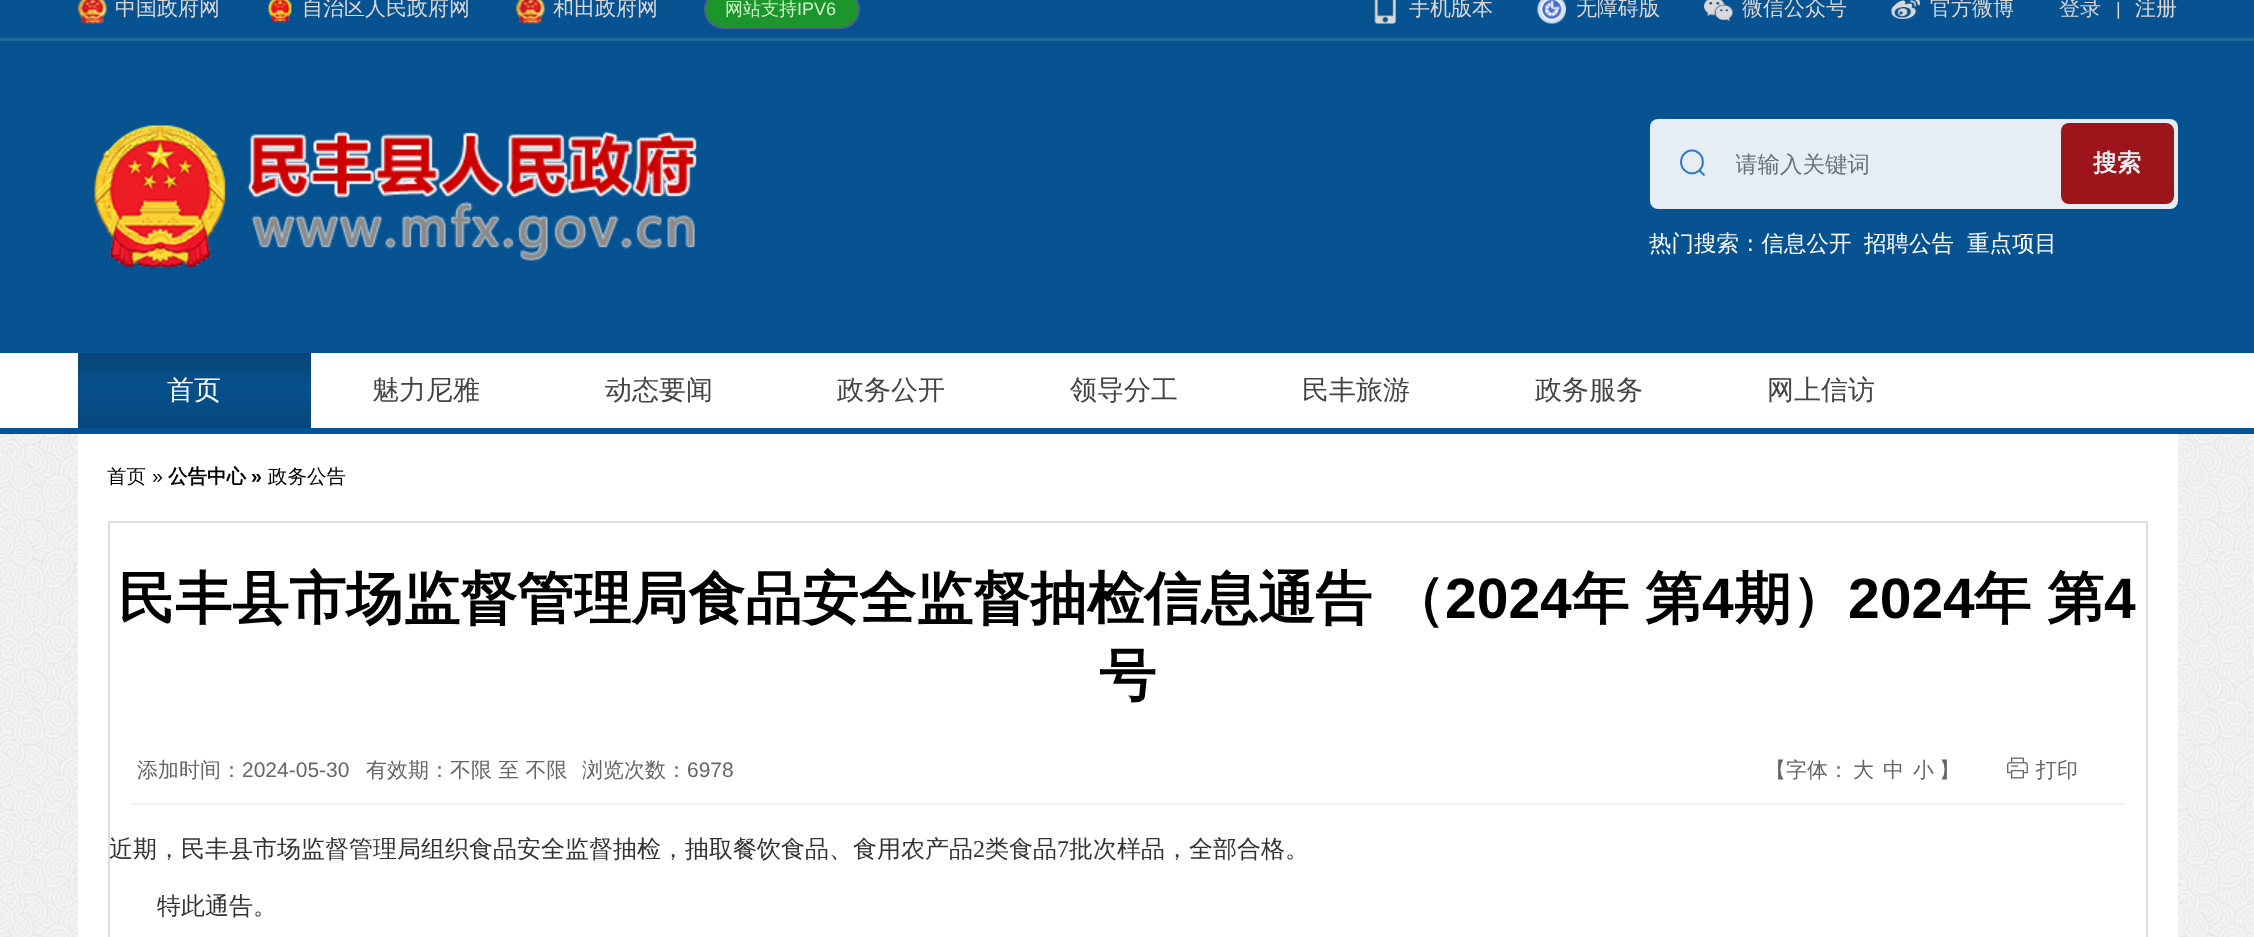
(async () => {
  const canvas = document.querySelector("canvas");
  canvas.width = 2254;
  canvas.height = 937;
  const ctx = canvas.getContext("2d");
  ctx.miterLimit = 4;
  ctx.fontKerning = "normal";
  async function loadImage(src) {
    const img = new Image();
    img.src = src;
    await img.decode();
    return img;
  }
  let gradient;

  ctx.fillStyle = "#ffffff";
  ctx.fillRect(0, 0, 2254, 937);
  ctx.drawImage(await loadImage("img/1.png"), 0, 434, 2254, 503);
  ctx.fillStyle = "#075391";
  ctx.fillRect(0, 0, 2254, 353);
  ctx.fillStyle = "#25679c";
  ctx.fillRect(0, 38, 2254, 3);
  ctx.drawImage(await loadImage("img/2.png"), 78, 0, 29, 24);
  ctx.drawImage(await loadImage("img/3.png"), 266, 0, 28, 23);
  ctx.drawImage(await loadImage("img/2.png"), 516, 0, 29, 24);
  ctx.fillStyle = "#1c952c";
  ctx.beginPath();
  ctx.roundRect(705, -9, 154, 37, 18.5);
  ctx.fill();
  ctx.strokeStyle = "#4b6585";
  ctx.lineWidth = 2;
  ctx.stroke();
  ctx.drawImage(await loadImage("img/4.png"), 1374, 0, 22, 24);
  ctx.drawImage(await loadImage("img/5.png"), 1537, 0, 29, 24);
  ctx.drawImage(await loadImage("img/6.png"), 1704, 0, 29, 21);
  ctx.drawImage(await loadImage("img/7.png"), 1891, 0, 29, 19);
  ctx.drawImage(await loadImage("img/8.png"), 247, 131, 450, 130);
  ctx.fillStyle = "#e6eef4";
  ctx.beginPath();
  ctx.roundRect(1650, 119, 528, 90, 8);
  ctx.fill();
  ctx.drawImage(await loadImage("img/9.png"), 1680, 149, 25, 27);
  ctx.fillStyle = "#9d151b";
  ctx.beginPath();
  ctx.roundRect(2061, 123, 113, 81, 8);
  ctx.fill();
  ctx.fillStyle = "#075391";
  ctx.fillRect(0, 428, 2254, 6);
  gradient = ctx.createLinearGradient(194, 353, 194, 428);
  gradient.addColorStop(0, "#064578");
  gradient.addColorStop(0.46, "#07508c");
  gradient.addColorStop(1, "#06477d");
  ctx.fillStyle = gradient;
  ctx.fillRect(78, 353, 233, 75);
  ctx.fillStyle = "#ffffff";
  ctx.fillRect(78, 434, 2100, 503);
  ctx.strokeStyle = "#dddddd";
  ctx.strokeRect(109, 522, 2038, 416);
  ctx.fillStyle = "#efefef";
  ctx.fillRect(132, 803, 1992, 2);
  ctx.drawImage(await loadImage("img/10.png"), 2007, 757, 21, 22);
  ctx.drawImage(await loadImage("img/11.png"), 94, 125, 132, 144);
  ctx.font = "500 21px WenQuanYi Zen Hei";
  ctx.fillStyle = "#dcd8d8";
  for (const [text, x, y] of [
    ["中国政府网", 115, 15],
    ["自治区人民政府网", 302, 15],
    ["和田政府网", 553, 15],
  ]) {
    ctx.fillText(text, x, y);
  }
  ctx.font = "500 18px WenQuanYi Zen Hei";
  ctx.fillStyle = "#cef2c9";
  ctx.fillText("网站支持", 725, 15);
  ctx.font = "18px Liberation Sans";
  ctx.fillText("IPV6", 797, 15);
  ctx.font = "500 21px WenQuanYi Zen Hei";
  ctx.fillStyle = "#dcd8d8";
  for (const [text, x, y] of [
    ["手机版本", 1409, 15],
    ["无障碍版", 1576, 15],
    ["微信公众号", 1742, 15],
    ["官方微博", 1930, 15],
    ["登录", 2059, 15],
  ]) {
    ctx.fillText(text, x, y);
  }
  ctx.font = "18px Liberation Sans";
  ctx.fillText("|", 2116, 15);
  ctx.font = "500 21px WenQuanYi Zen Hei";
  ctx.fillText("注册", 2135, 15);
  ctx.save();
  ctx.beginPath();
  ctx.rect(1736, 152, 298, 25);
  ctx.clip();
  ctx.font = "500 22.5px WenQuanYi Zen Hei";
  ctx.fillStyle = "#6a7278";
  ctx.fillText("请输入关键词", 1735, 172);
  ctx.restore();
  ctx.font = "bold 24px WenQuanYi Zen Hei";
  ctx.fillStyle = "#e6eef4";
  ctx.fillText("搜索", 2093, 171);
  ctx.font = "500 22.5px WenQuanYi Zen Hei";
  ctx.fillStyle = "#ffffff";
  for (const [text, x, y] of [
    ["热门搜索：信息公开", 1649, 251],
    ["招聘公告", 1864, 251],
    ["重点项目", 1967, 251],
  ]) {
    ctx.fillText(text, x, y);
  }
  ctx.font = "500 27px WenQuanYi Zen Hei";
  ctx.fillText("首页", 167, 399);
  ctx.fillStyle = "#444444";
  for (const [text, x, y] of [
    ["魅力尼雅", 372, 399],
    ["动态要闻", 605, 399],
    ["政务公开", 837, 399],
    ["领导分工", 1070, 399],
    ["民丰旅游", 1302, 399],
    ["政务服务", 1535, 399],
    ["网上信访", 1767, 399],
  ]) {
    ctx.fillText(text, x, y);
  }
  ctx.font = "500 19.5px WenQuanYi Zen Hei";
  ctx.fillStyle = "#000000";
  ctx.fillText("首页", 107, 483);
  ctx.font = "19.5px Liberation Sans";
  ctx.fillText("»", 152, 483);
  ctx.font = "bold 19.5px WenQuanYi Zen Hei";
  ctx.fillText("公告中心", 168, 483);
  ctx.font = "bold 19.5px Liberation Sans";
  ctx.fillText("»", 251, 483);
  ctx.font = "500 19.5px WenQuanYi Zen Hei";
  ctx.fillText("政务公告", 268, 483);
  ctx.font = "bold 57px WenQuanYi Zen Hei";
  ctx.fillText("民丰县市场监督管理局食品安全监督抽检信息通告", 118, 618);
  ctx.fillText("（", 1388, 618);
  ctx.font = "bold 57px Liberation Sans";
  ctx.fillText("2024", 1445, 618);
  ctx.wordSpacing = "-1px";
  ctx.font = "bold 57px WenQuanYi Zen Hei";
  ctx.fillText("年 第", 1572, 618);
  ctx.wordSpacing = "0px";
  ctx.font = "bold 57px Liberation Sans";
  ctx.fillText("4", 1702, 618);
  ctx.font = "bold 57px WenQuanYi Zen Hei";
  ctx.fillText("期）", 1734, 618);
  ctx.font = "bold 57px Liberation Sans";
  ctx.fillText("2024", 1848, 618);
  ctx.wordSpacing = "-1px";
  ctx.font = "bold 57px WenQuanYi Zen Hei";
  ctx.fillText("年 第", 1974, 618);
  ctx.wordSpacing = "0px";
  ctx.font = "bold 57px Liberation Sans";
  ctx.fillText("4", 2104, 618);
  ctx.font = "bold 57px WenQuanYi Zen Hei";
  ctx.fillText("号", 1099, 695);
  ctx.font = "500 21px WenQuanYi Zen Hei";
  ctx.fillStyle = "#666666";
  ctx.fillText("添加时间：", 137, 777);
  ctx.font = "21px Liberation Sans";
  ctx.fillText("2024-05-30", 242, 777);
  ctx.font = "500 21px WenQuanYi Zen Hei";
  ctx.fillText("有效期：不限 至 不限", 366, 777);
  ctx.fillText("浏览次数：", 582, 777);
  ctx.font = "21px Liberation Sans";
  ctx.fillText("6978", 687, 777);
  ctx.font = "500 21px WenQuanYi Zen Hei";
  for (const [text, x, y] of [
    ["【字体：", 1765, 777],
    ["大", 1853, 777],
    ["中", 1883, 777],
    ["小", 1913, 777],
    ["】", 1939, 777],
    ["打印", 2036, 777],
  ]) {
    ctx.fillText(text, x, y);
  }
  ctx.font = "500 24px WenQuanYi Zen Hei";
  ctx.fillStyle = "#333333";
  ctx.fillText("近期，民丰县市场监督管理局组织食品安全监督抽检，抽取餐饮食品、食用农产品", 109, 857);
  ctx.font = "24px Liberation Serif";
  ctx.fillText("2", 973, 857);
  ctx.font = "500 24px WenQuanYi Zen Hei";
  ctx.fillText("类食品", 985, 857);
  ctx.font = "24px Liberation Serif";
  ctx.fillText("7", 1057, 857);
  ctx.font = "500 24px WenQuanYi Zen Hei";
  ctx.fillText("批次样品，全部合格。", 1069, 857);
  ctx.fillText("特此通告。", 157, 914);
})();
